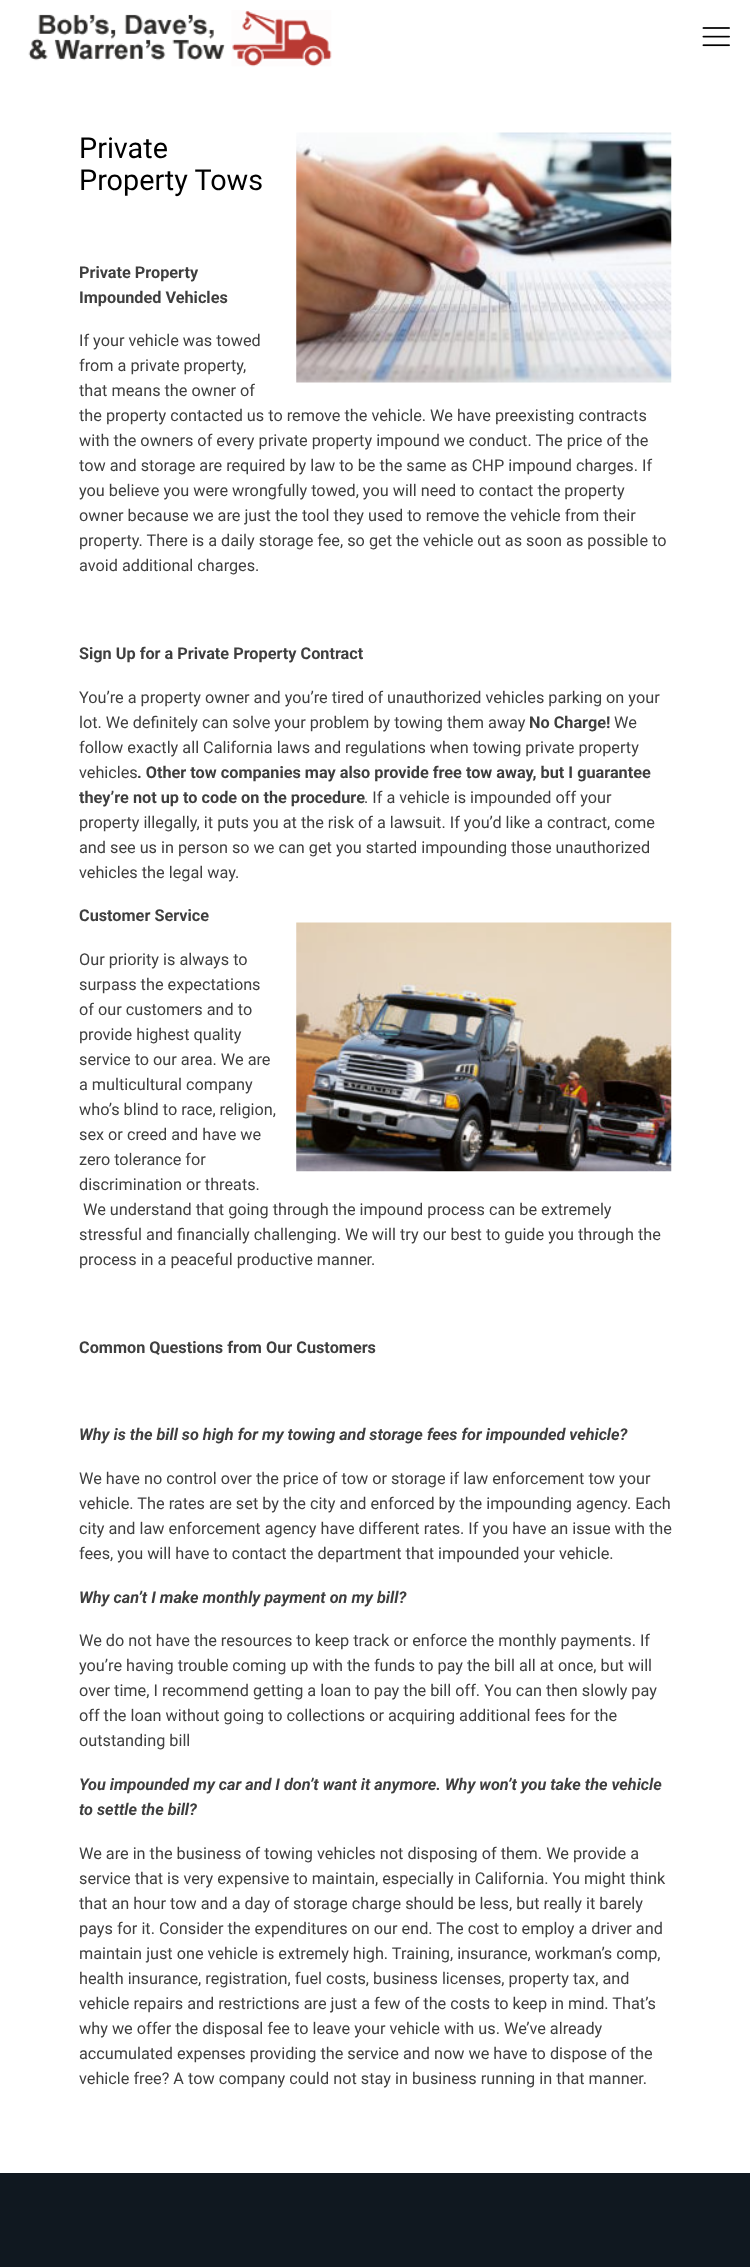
(async () => {
  const canvas = document.querySelector("canvas");
  canvas.width = 750;
  canvas.height = 2267;
  const ctx = canvas.getContext("2d");
  ctx.miterLimit = 4;
  ctx.fontKerning = "normal";
  async function loadImage(src) {
    const img = new Image();
    img.src = src;
    await img.decode();
    return img;
  }

  ctx.fillStyle = "#ffffff";
  ctx.fillRect(0, 0, 750, 2267);
  ctx.drawImage(await loadImage("img/1.png"), 28, 10, 304, 57);
  ctx.drawImage(await loadImage("img/2.png"), 702, 27, 28, 20);
  ctx.drawImage(await loadImage("img/3.png"), 296, 132, 376, 251);
  ctx.drawImage(await loadImage("img/4.png"), 296, 922, 376, 250);
  ctx.fillStyle = "#101820";
  ctx.fillRect(0, 2173, 750, 94);
  ctx.font = "28.75px Roboto";
  ctx.fillStyle = "#000000";
  ctx.fillText("Private", 79, 158);
  ctx.fillText("Property Tows", 79, 190);
  ctx.font = "bold 16.25px Roboto";
  ctx.fillStyle = "#3f3f3f";
  ctx.fillText("Private Property", 79, 278);
  ctx.fillText("Impounded Vehicles", 79, 303);
  ctx.font = "16.25px Roboto";
  for (const [text, x, y] of [
    ["If your vehicle was towed", 79, 346],
    ["from a private property,", 79, 371],
    ["that means the owner of", 79, 396],
    ["the property contacted us to remove the vehicle. We have preexisting contracts", 79, 421],
    ["with the owners of every private property impound we conduct. The price of the", 79, 446],
    ["tow and storage are required by law to be the same as CHP impound charges. If", 79, 471],
    ["you believe you were wrongfully towed, you will need to contact the property", 79, 496],
    ["owner because we are just the tool they used to remove the vehicle from their", 79, 521],
    ["property. There is a daily storage fee, so get the vehicle out as soon as possible to", 79, 546],
    ["avoid additional charges.", 79, 571],
  ]) {
    ctx.fillText(text, x, y);
  }
  ctx.font = "bold 16.25px Roboto";
  ctx.fillText("Sign Up for a Private Property Contract", 79, 659);
  ctx.font = "16.25px Roboto";
  ctx.fillText("You’re a property owner and you’re tired of unauthorized vehicles parking on your", 79, 703);
  ctx.fillText("lot. We definitely can solve your problem by towing them away", 79, 728);
  ctx.font = "bold 16.25px Roboto";
  ctx.fillText("No Charge!", 529, 728);
  ctx.font = "16.25px Roboto";
  for (const [text, x, y] of [
    ["We", 614, 728],
    ["follow exactly all California laws and regulations when towing private property", 79, 753],
    ["vehicles", 79, 778],
  ]) {
    ctx.fillText(text, x, y);
  }
  ctx.font = "bold 16.25px Roboto";
  ctx.fillText(". Other tow companies may also provide free tow away, but I guarantee", 137, 778);
  ctx.fillText("they’re not up to code on the procedure", 79, 803);
  ctx.font = "16.25px Roboto";
  for (const [text, x, y] of [
    [". If a vehicle is impounded off your", 364, 803],
    ["property illegally, it puts you at the risk of a lawsuit. If you’d like a contract, come", 79, 828],
    ["and see us in person so we can get you started impounding those unauthorized", 79, 853],
    ["vehicles the legal way.", 79, 878],
  ]) {
    ctx.fillText(text, x, y);
  }
  ctx.font = "bold 16.25px Roboto";
  ctx.fillText("Customer Service", 79, 921);
  ctx.font = "16.25px Roboto";
  for (const [text, x, y] of [
    ["Our priority is always to", 79, 965],
    ["surpass the expectations", 79, 990],
    ["of our customers and to", 79, 1015],
    ["provide highest quality", 79, 1040],
    ["service to our area. We are", 79, 1065],
    ["a multicultural company", 79, 1090],
    ["who’s blind to race, religion,", 79, 1115],
    ["sex or creed and have we", 79, 1140],
    ["zero tolerance for", 79, 1165],
    ["discrimination or threats.", 79, 1190],
    ["We understand that going through the impound process can be extremely", 83, 1215],
    ["stressful and financially challenging. We will try our best to guide you through the", 79, 1240],
    ["process in a peaceful productive manner.", 79, 1265],
  ]) {
    ctx.fillText(text, x, y);
  }
  ctx.font = "bold 16.25px Roboto";
  ctx.fillText("Common Questions from Our Customers", 79, 1353);
  ctx.font = "italic bold 16.25px Roboto";
  ctx.fillText("Why is the bill so high for my towing and storage fees for impounded vehicle?", 79, 1440);
  ctx.font = "16.25px Roboto";
  for (const [text, x, y] of [
    ["We have no control over the price of tow or storage if law enforcement tow your", 79, 1484],
    ["vehicle. The rates are set by the city and enforced by the impounding agency. Each", 79, 1509],
    ["city and law enforcement agency have different rates. If you have an issue with the", 79, 1534],
    ["fees, you will have to contact the department that impounded your vehicle.", 79, 1559],
  ]) {
    ctx.fillText(text, x, y);
  }
  ctx.font = "italic bold 16.25px Roboto";
  ctx.fillText("Why can’t I make monthly payment on my bill?", 79, 1603);
  ctx.font = "16.25px Roboto";
  for (const [text, x, y] of [
    ["We do not have the resources to keep track or enforce the monthly payments. If", 79, 1646],
    ["you’re having trouble coming up with the funds to pay the bill all at once, but will", 79, 1671],
    ["over time, I recommend getting a loan to pay the bill off. You can then slowly pay", 79, 1696],
    ["off the loan without going to collections or acquiring additional fees for the", 79, 1721],
    ["outstanding bill", 79, 1746],
  ]) {
    ctx.fillText(text, x, y);
  }
  ctx.font = "italic bold 16.25px Roboto";
  for (const [text, x, y] of [
    ["Y", 79, 1790],
    ["ou impounded my car and I don’t want it anymore. Why won’t you take the vehicle", 88, 1790],
    ["to settle the bill?", 79, 1815],
  ]) {
    ctx.fillText(text, x, y);
  }
  ctx.font = "16.25px Roboto";
  for (const [text, x, y] of [
    ["We are in the business of towing vehicles not disposing of them. We provide a", 79, 1859],
    ["service that is very expensive to maintain, especially in California. You might think", 79, 1884],
    ["that an hour tow and a day of storage charge should be less, but really it barely", 79, 1909],
    ["pays for it. Consider the expenditures on our end. The cost to employ a driver and", 79, 1934],
    ["maintain just one vehicle is extremely high. Training, insurance, workman’s comp,", 79, 1959],
    ["health insurance, registration, fuel costs, business licenses, property tax, and", 79, 1984],
    ["vehicle repairs and restrictions are just a few of the costs to keep in mind. That’s", 79, 2009],
    ["why we offer the disposal fee to leave your vehicle with us. We’ve already", 79, 2034],
    ["accumulated expenses providing the service and now we have to dispose of the", 79, 2059],
    ["vehicle free? A tow company could not stay in business running in that manner.", 79, 2084],
  ]) {
    ctx.fillText(text, x, y);
  }
})();
